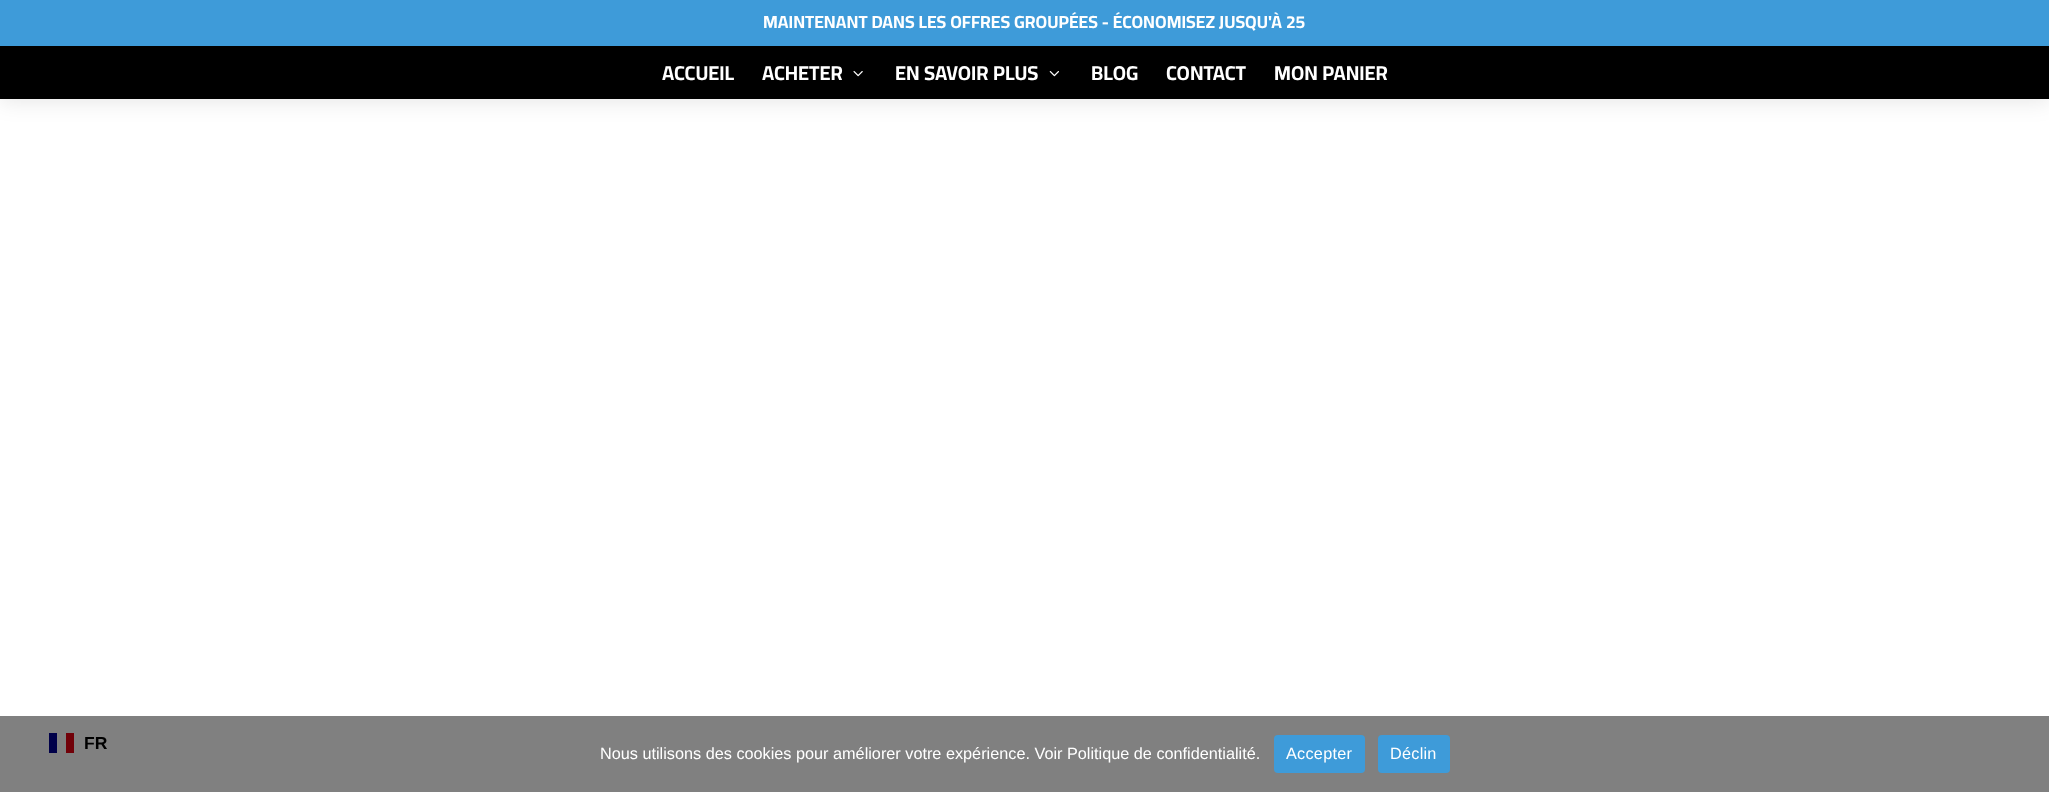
(async () => {
  const canvas = document.querySelector("canvas");
  canvas.width = 2049;
  canvas.height = 792;
  const ctx = canvas.getContext("2d");
  ctx.miterLimit = 4;
  ctx.fontKerning = "normal";
  async function loadImage(src) {
    const img = new Image();
    img.src = src;
    await img.decode();
    return img;
  }

  ctx.fillStyle = "#ffffff";
  ctx.fillRect(0, 0, 2049, 792);
  ctx.fillStyle = "#808080";
  ctx.fillRect(0, 716, 2049, 76);
  ctx.fillStyle = "rgba(0, 0, 0, 0.1)";
  ctx.filter = "blur(11px)";
  ctx.beginPath();
  ctx.rect(0, 3, 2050, 98);
  ctx.fill();
  ctx.filter = "none";
  ctx.fillStyle = "#000000";
  ctx.fillRect(0, 46, 2049, 53);
  ctx.fillStyle = "#3e9bd9";
  ctx.fillRect(0, 0, 2049, 46);
  ctx.drawImage(await loadImage("img/1.png"), 853, 71, 10, 6);
  ctx.drawImage(await loadImage("img/2.png"), 1049, 71, 10, 6);
  ctx.fillStyle = "#000049";
  ctx.fillRect(49, 733, 8, 20);
  ctx.fillStyle = "#710008";
  ctx.fillRect(66, 733, 8, 20);
  ctx.fillStyle = "#3e9bd9";
  ctx.beginPath();
  ctx.roundRect(1274, 735, 91, 38, 4);
  ctx.fill();
  ctx.beginPath();
  ctx.roundRect(1378, 735, 72, 38, 4);
  ctx.fill();
  ctx.font = "bold 17.5px Cairo";
  ctx.fillStyle = "#ffffff";
  ctx.fillText("MAINTENANT DANS LES OFFRES GROUPÉES - ÉCONOMISEZ JUSQU'À 25", 763, 28);
  ctx.font = "bold 20px Cairo";
  for (const [text, x, y] of [
    ["ACCUEIL", 662, 80],
    ["ACHETER", 762, 80],
    ["EN SAVOIR PLUS", 895, 80],
    ["BLOG", 1091, 80],
    ["CONTACT", 1166, 80],
    ["MON PANIER", 1274, 80],
  ]) {
    ctx.fillText(text, x, y);
  }
  ctx.font = "bold 17.5px Liberation Sans";
  ctx.fillStyle = "#000000";
  ctx.fillText("FR", 84, 749);
  ctx.font = "16.25px Liberation Sans";
  ctx.fillStyle = "#ffffff";
  ctx.fillText("Nous utilisons des cookies pour améliorer votre expérience. Voir Politique de confidentialité.", 600, 759);
  ctx.letterSpacing = "0.25px";
  ctx.fillText("Accepter", 1286, 759);
  ctx.fillText("Déclin", 1390, 759);
})();
